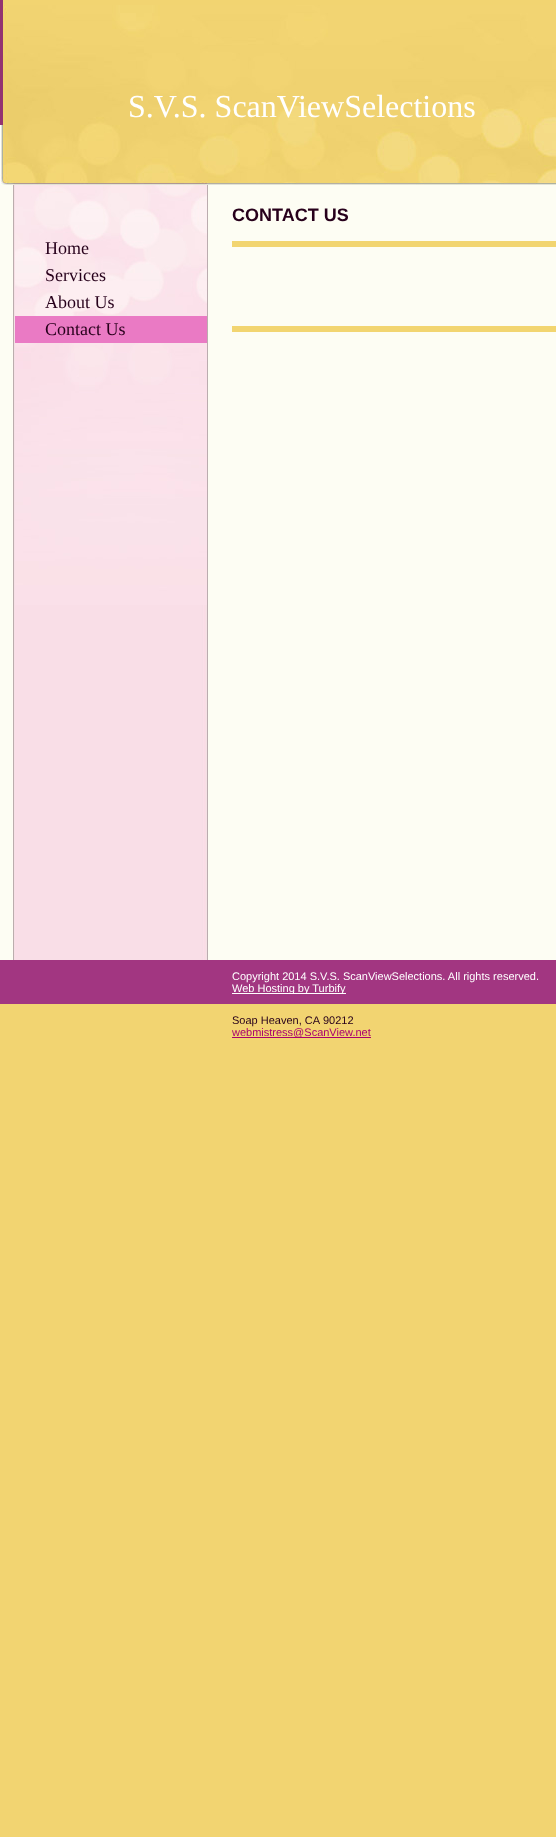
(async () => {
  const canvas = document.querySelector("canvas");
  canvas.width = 556;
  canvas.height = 1837;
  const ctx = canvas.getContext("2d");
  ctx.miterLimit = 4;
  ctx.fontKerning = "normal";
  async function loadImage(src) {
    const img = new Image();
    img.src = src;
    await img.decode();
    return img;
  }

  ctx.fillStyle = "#f2d471";
  ctx.fillRect(0, 0, 556, 1837);
  ctx.fillStyle = "#fdfdf3";
  ctx.fillRect(0, 185, 556, 775);
  ctx.drawImage(await loadImage("img/1.png"), 11, 185, 203, 775);
  ctx.drawImage(await loadImage("img/2.png"), 0, 5, 556, 180);
  for (const [x, y, w, h, color] of [
    [0, 0, 3, 125, "#933371"],
    [232, 241, 324, 6, "#f2d570"],
    [232, 326, 324, 6, "#f2d570"],
  ]) {
    ctx.fillStyle = color;
    ctx.fillRect(x, y, w, h);
  }
  ctx.drawImage(await loadImage("img/3.png"), 15, 185, 192, 420);
  for (const [x, y, w, h, color] of [
    [15, 316, 192, 27, "#ea7ac4"],
    [0, 960, 556, 44, "#a23681"],
    [232, 993, 114, 1, "#ffffff"],
    [232, 1037, 121, 1, "#aa006e"],
    [353, 1037, 18, 1, "#aa006e"],
  ]) {
    ctx.fillStyle = color;
    ctx.fillRect(x, y, w, h);
  }
  ctx.font = "32px Liberation Serif";
  ctx.fillStyle = "#ffffff";
  ctx.fillText("S.V.S. ScanViewSelections", 128, 117);
  ctx.font = "bold 18px Liberation Sans";
  ctx.fillStyle = "#27001b";
  ctx.fillText("CONTACT US", 232, 221);
  ctx.font = "18px Liberation Serif";
  for (const [text, x, y] of [
    ["Home", 45, 254],
    ["Services", 45, 281],
    ["About Us", 45, 308],
    ["Contact Us", 45, 335],
  ]) {
    ctx.fillText(text, x, y);
  }
  ctx.font = "11px Liberation Sans";
  ctx.fillStyle = "#ffffff";
  ctx.fillText("Copyright 2014 S.V.S. ScanViewSelections. All rights reserved.", 232, 980);
  ctx.save();
  ctx.beginPath();
  ctx.rect(232, 970, 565, 24);
  ctx.clip();
  ctx.fillText("Web Hosting by Turbify", 232, 992);
  ctx.restore();
  ctx.fillStyle = "#27001b";
  ctx.fillText("Soap Heaven, CA", 232, 1024);
  ctx.fillText("90212", 323, 1024);
  ctx.fillStyle = "#aa006e";
  ctx.fillText("webmistress@ScanView.net", 232, 1036);
})();
